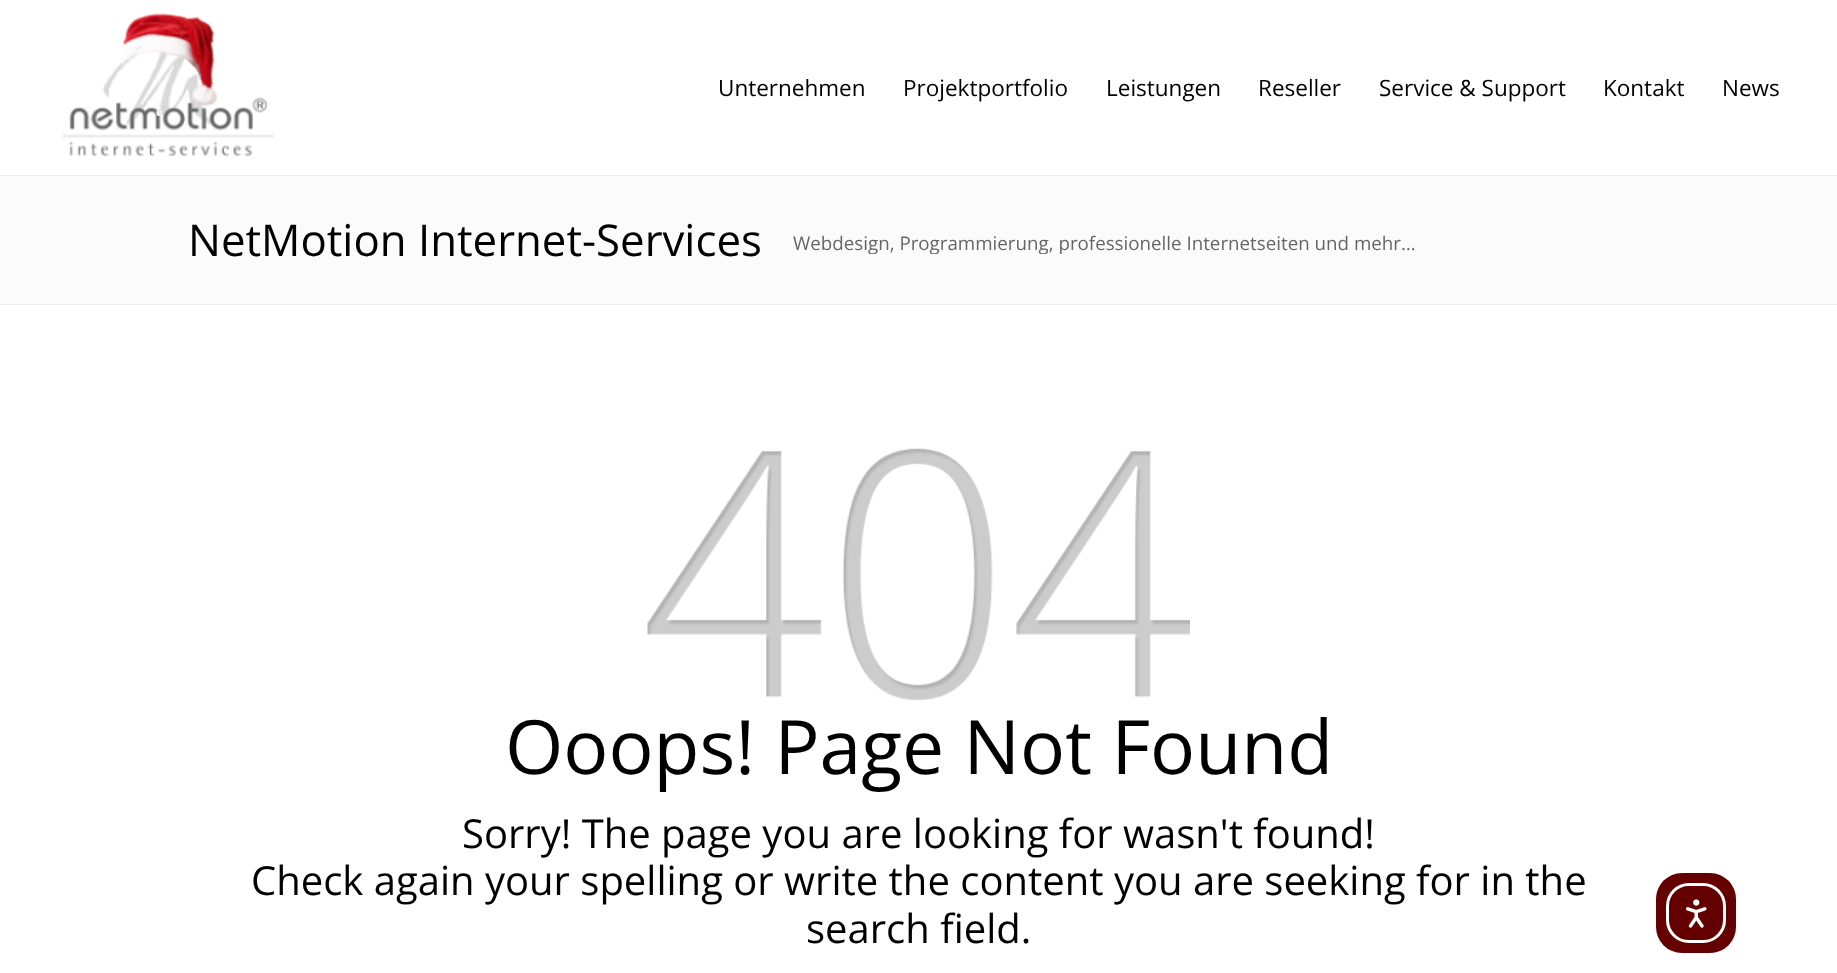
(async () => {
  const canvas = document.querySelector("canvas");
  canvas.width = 1837;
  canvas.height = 973;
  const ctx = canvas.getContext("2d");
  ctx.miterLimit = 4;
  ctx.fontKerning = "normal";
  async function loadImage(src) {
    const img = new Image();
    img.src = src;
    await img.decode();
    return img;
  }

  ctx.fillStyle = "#ffffff";
  ctx.fillRect(0, 0, 1837, 973);
  ctx.drawImage(await loadImage("img/1.png"), 62, 13, 212, 144);
  for (const [x, y, w, h, color] of [
    [0, 176, 1837, 128, "#fbfbfb"],
    [0, 175, 1837, 1, "#eeeeee"],
    [0, 304, 1837, 1, "#eeeeee"],
  ]) {
    ctx.fillStyle = color;
    ctx.fillRect(x, y, w, h);
  }
  ctx.drawImage(await loadImage("img/2.png"), 647, 448, 543, 252);
  ctx.fillStyle = "#640000";
  ctx.beginPath();
  ctx.roundRect(1656, 873, 80, 80, 26);
  ctx.fill();
  ctx.beginPath();
  ctx.roundRect(1667.5, 884.5, 57, 57, 21.5);
  ctx.strokeStyle = "#ffffff";
  ctx.lineWidth = 3;
  ctx.stroke();
  ctx.drawImage(await loadImage("img/3.png"), 1686, 899, 21, 29);
  ctx.font = "28px Open Sans";
  ctx.fillStyle = "#efefef";
  ctx.fillText("•", 154, 123);
  ctx.font = "22.5px Open Sans";
  ctx.fillStyle = "#000000";
  for (const [text, x, y] of [
    ["Unternehmen", 718, 96],
    ["Projektportfolio", 903, 96],
    ["Leistungen", 1106, 96],
    ["Reseller", 1258, 96],
    ["Service & Support", 1379, 96],
    ["Kontakt", 1603, 96],
    ["News", 1722, 96],
  ]) {
    ctx.fillText(text, x, y);
  }
  ctx.font = "43.75px Open Sans";
  ctx.fillText("NetMotion Internet-Services", 188, 256);
  ctx.save();
  ctx.beginPath();
  ctx.rect(793, 231, 622, 23);
  ctx.clip();
  ctx.font = "18.75px Open Sans";
  ctx.fillStyle = "#666666";
  ctx.fillText("Webdesign, Programmierung, professionelle Internetseiten und mehr…", 793, 250);
  ctx.restore();
  ctx.font = "75px Open Sans";
  ctx.fillText("Ooops! Page Not Found", 505, 774);
  ctx.font = "40px Open Sans";
  for (const [text, x, y] of [
    ["Sorry! The page you are looking for wasn't found!", 462, 848],
    ["Check again your spelling or write the content you are seeking for in the", 251, 895],
    ["search field.", 806, 943],
  ]) {
    ctx.fillText(text, x, y);
  }
})();
